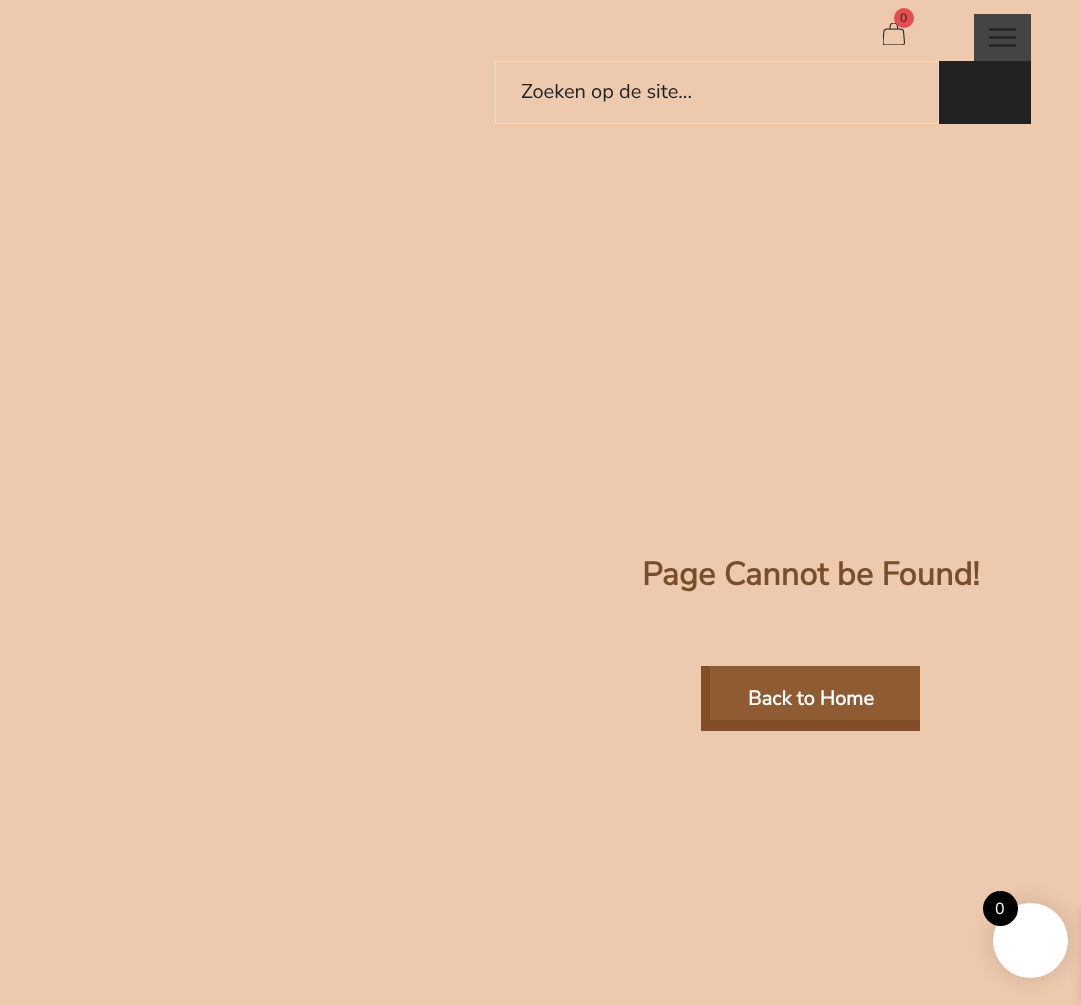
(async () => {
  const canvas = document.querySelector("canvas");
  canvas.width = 1081;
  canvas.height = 1005;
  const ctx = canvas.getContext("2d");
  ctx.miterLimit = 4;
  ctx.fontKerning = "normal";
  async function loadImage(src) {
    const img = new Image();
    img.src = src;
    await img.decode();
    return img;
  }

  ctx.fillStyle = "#edc9ad";
  ctx.fillRect(0, 0, 1081, 1005);
  ctx.drawImage(await loadImage("img/1.png"), 883, 23, 22, 22);
  ctx.fillStyle = "#e64c4c";
  ctx.beginPath();
  ctx.arc(904, 18, 10, 0, Math.PI * 2);
  ctx.fill();
  ctx.fillStyle = "#444444";
  ctx.fillRect(974, 14, 57, 47);
  ctx.drawImage(await loadImage("img/2.png"), 989, 28, 27, 19);
  ctx.strokeStyle = "#dedede";
  ctx.strokeRect(495.5, 61.5, 443, 62);
  for (const [x, y, w, h, color] of [
    [939, 61, 92, 63, "#222222"],
    [710, 666, 210, 54, "#8f5b33"],
    [710, 720, 210, 11, "#844d29"],
    [701, 666, 9, 65, "#844d29"],
  ]) {
    ctx.fillStyle = color;
    ctx.fillRect(x, y, w, h);
  }
  ctx.fillStyle = "rgba(0, 0, 0, 0.1)";
  ctx.filter = "blur(9.5px)";
  ctx.beginPath();
  ctx.roundRect(990, 900, 80, 80, 40);
  ctx.fill();
  ctx.filter = "none";
  ctx.filter = "blur(6px)";
  ctx.beginPath();
  ctx.rect(1081, 909, 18, 95);
  ctx.fill();
  ctx.filter = "none";
  ctx.fillStyle = "#ffffff";
  ctx.beginPath();
  ctx.arc(1030.5, 940.5, 37.5, 0, Math.PI * 2);
  ctx.fill();
  ctx.fillStyle = "#000000";
  ctx.beginPath();
  ctx.arc(1000.5, 908.5, 17.5, 0, Math.PI * 2);
  ctx.fill();
  ctx.font = "200 12px Nunito Sans";
  ctx.fillStyle = "#222222";
  ctx.fillText("0", 900, 22);
  ctx.font = "200 20px Nunito Sans";
  ctx.fillText("Zoeken op de site...", 521, 98);
  ctx.font = "bold 32.5px Nunito Sans";
  ctx.fillStyle = "#7a4e2b";
  ctx.fillText("Page Cannot be Found!", 642, 585);
  ctx.font = "bold 20px Nunito Sans";
  ctx.fillStyle = "#ffffff";
  ctx.fillText("Back to Home", 748, 705);
  ctx.font = "200 16px Nunito Sans";
  ctx.fillText("0", 995, 914);
})();
